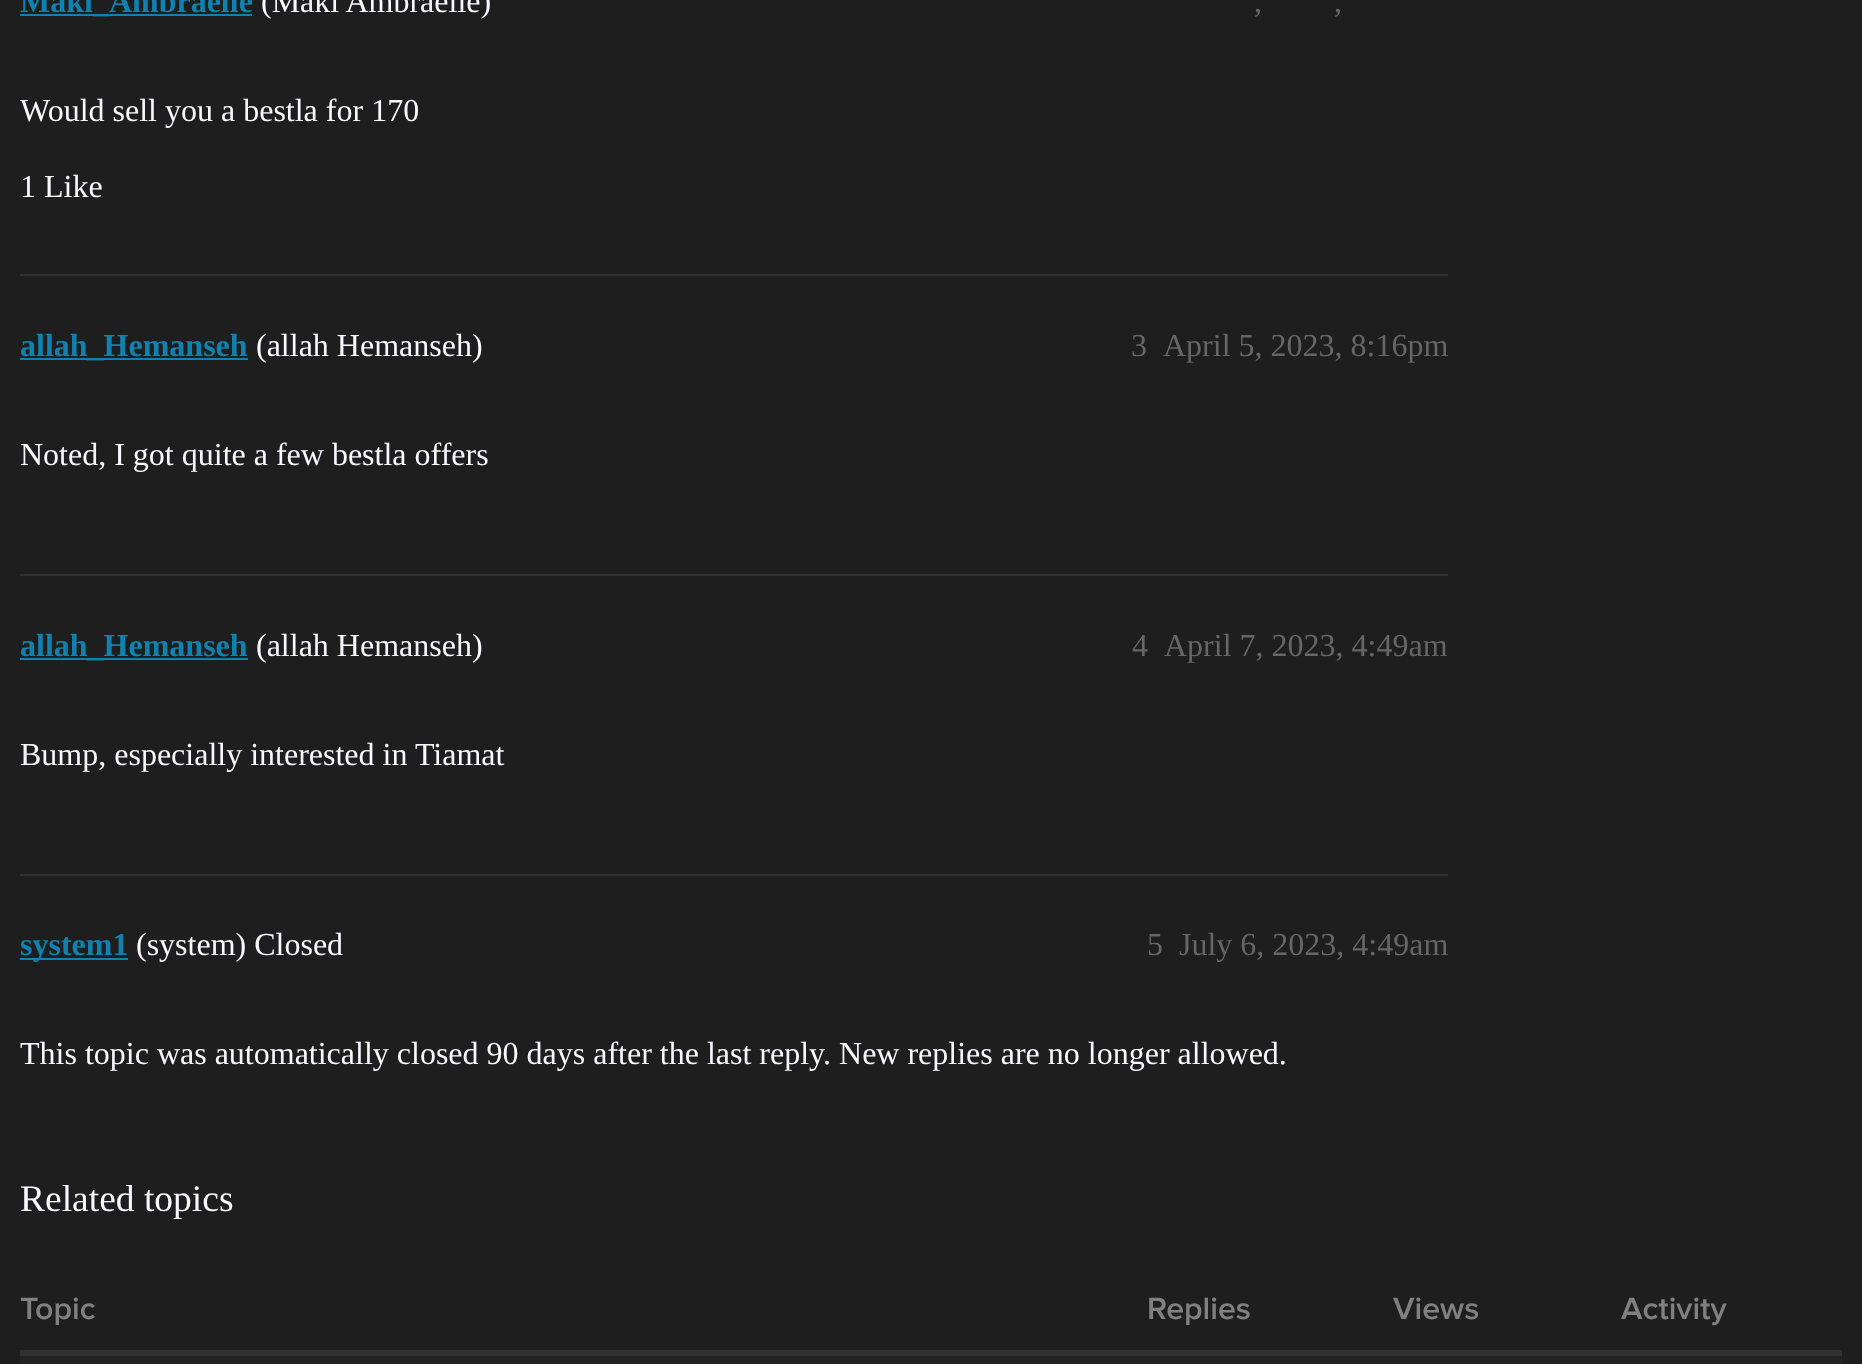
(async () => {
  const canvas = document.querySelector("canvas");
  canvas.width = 1862;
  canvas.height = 1364;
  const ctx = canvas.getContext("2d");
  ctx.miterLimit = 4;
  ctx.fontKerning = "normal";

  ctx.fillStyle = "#1e1e1e";
  ctx.fillRect(0, 0, 1862, 1364);
  for (const [x, y, w, h, color] of [
    [20, 14, 232, 2, "#0f82af"],
    [20, 274, 1428, 2, "#313131"],
    [20, 358, 228, 2, "#0f82af"],
    [20, 574, 1428, 2, "#313131"],
    [20, 658, 228, 2, "#0f82af"],
    [20, 874, 1428, 2, "#313131"],
    [20, 958, 108, 2, "#0f82af"],
    [20, 1350, 1822, 6, "#313131"],
    [20, 1356, 1822, 8, "#222222"],
  ]) {
    ctx.fillStyle = color;
    ctx.fillRect(x, y, w, h);
  }
  ctx.font = "bold 32px Liberation Serif";
  ctx.fillStyle = "#0f82af";
  ctx.fillText("Maki_Ambraelle", 20, 12);
  ctx.font = "32px Liberation Serif";
  ctx.fillStyle = "#f8f8ff";
  ctx.fillText("(Maki Ambraelle)", 261, 12);
  ctx.fillStyle = "#666666";
  ctx.fillText(",", 1254, 12);
  ctx.fillText(",", 1334, 12);
  ctx.fillStyle = "#f8f8ff";
  ctx.fillText("Would sell you a bestla for 170", 20, 121);
  ctx.fillText("1 Like", 20, 197);
  ctx.font = "bold 32px Liberation Serif";
  ctx.fillStyle = "#0f82af";
  ctx.fillText("allah_Hemanseh", 20, 356);
  ctx.font = "32px Liberation Serif";
  ctx.fillStyle = "#f8f8ff";
  ctx.fillText("(allah Hemanseh)", 256, 356);
  ctx.fillStyle = "#666666";
  ctx.fillText("3", 1131, 356);
  ctx.fillText("April 5, 2023, 8:16pm", 1163, 356);
  ctx.fillStyle = "#f8f8ff";
  ctx.fillText("Noted, I got quite a few bestla offers", 20, 465);
  ctx.font = "bold 32px Liberation Serif";
  ctx.fillStyle = "#0f82af";
  ctx.fillText("allah_Hemanseh", 20, 656);
  ctx.font = "32px Liberation Serif";
  ctx.fillStyle = "#f8f8ff";
  ctx.fillText("(allah Hemanseh)", 256, 656);
  ctx.fillStyle = "#666666";
  ctx.fillText("4", 1132, 656);
  ctx.fillText("April 7, 2023, 4:49am", 1164, 656);
  ctx.fillStyle = "#f8f8ff";
  ctx.fillText("Bump, especially interested in Tiamat", 20, 765);
  ctx.font = "bold 32px Liberation Serif";
  ctx.fillStyle = "#0f82af";
  ctx.fillText("system1", 20, 955);
  ctx.font = "32px Liberation Serif";
  ctx.fillStyle = "#f8f8ff";
  ctx.fillText("(system) Closed", 136, 955);
  ctx.fillStyle = "#666666";
  ctx.fillText("5", 1147, 955);
  ctx.fillText("July 6, 2023, 4:49am", 1179, 955);
  ctx.fillStyle = "#f8f8ff";
  ctx.fillText("This topic was automatically closed 90 days after the last reply. New replies are no longer allowed.", 20, 1064);
  ctx.font = "37.5px Liberation Serif";
  ctx.fillText("Related topics", 20, 1211);
  ctx.font = "600 32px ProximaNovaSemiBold";
  ctx.fillStyle = "#808080";
  for (const [text, x, y] of [
    ["Topic", 20, 1319],
    ["Replies", 1147, 1319],
    ["Views", 1393, 1319],
    ["Activity", 1621, 1319],
  ]) {
    ctx.fillText(text, x, y);
  }
})();
